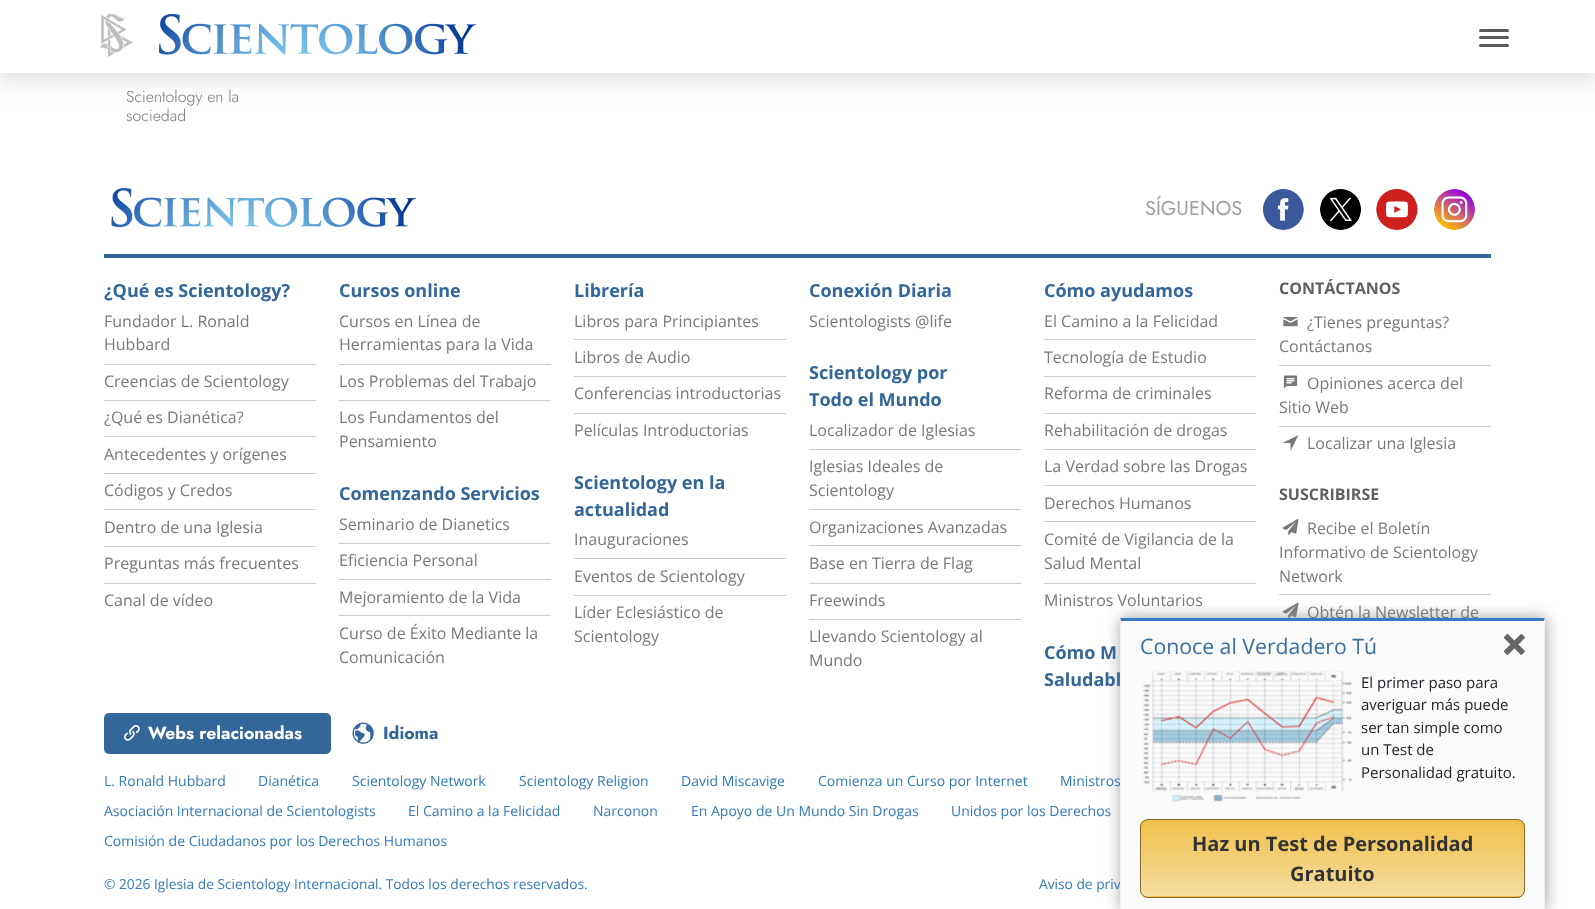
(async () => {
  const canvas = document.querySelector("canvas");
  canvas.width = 1595;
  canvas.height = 909;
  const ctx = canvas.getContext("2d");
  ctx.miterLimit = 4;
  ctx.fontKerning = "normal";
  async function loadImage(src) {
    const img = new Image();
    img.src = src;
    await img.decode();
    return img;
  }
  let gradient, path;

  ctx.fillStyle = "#ffffff";
  ctx.fillRect(0, 0, 1595, 909);
  ctx.fillStyle = "rgba(148, 148, 148, 0.3)";
  ctx.filter = "blur(12.5px)";
  ctx.beginPath();
  ctx.rect(-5, -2, 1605, 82);
  ctx.fill();
  ctx.filter = "none";
  ctx.fillStyle = "#ffffff";
  ctx.fillRect(0, 0, 1595, 73);
  ctx.drawImage(await loadImage("img/1.png"), 100, 14, 33, 43);
  ctx.drawImage(await loadImage("img/2.png"), 159, 13, 318, 42);
  ctx.fillStyle = "#575b5e";
  ctx.beginPath();
  ctx.roundRect(1479, 29, 30, 3, 1.5);
  ctx.fill();
  ctx.beginPath();
  ctx.roundRect(1479, 36, 30, 3, 1.5);
  ctx.fill();
  ctx.beginPath();
  ctx.roundRect(1479, 44, 30, 3, 1.5);
  ctx.fill();
  ctx.fillStyle = "#cccccc";
  ctx.fillRect(1279, 594, 212, 1);
  ctx.drawImage(await loadImage("img/13.png"), 1282, 602, 17, 16);
  ctx.fillStyle = "#9e9e9e";
  ctx.filter = "blur(8px)";
  ctx.beginPath();
  ctx.rect(1121, 618, 425, 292);
  ctx.fill();
  ctx.filter = "none";
  ctx.fillStyle = "#336699";
  ctx.fillRect(104, 254, 1387, 4);
  ctx.drawImage(await loadImage("img/5.png"), 111, 188, 305, 40);
  ctx.drawImage(await loadImage("img/6.png"), 1263, 189, 41, 41);
  ctx.drawImage(await loadImage("img/7.png"), 1320, 189, 41, 41);
  ctx.drawImage(await loadImage("img/8.png"), 1376, 189, 42, 41);
  ctx.drawImage(await loadImage("img/9.png"), 1434, 189, 41, 41);
  for (const [x, y, w, h, color] of [
    [104, 364, 212, 1, "#cccccc"],
    [104, 400, 212, 1, "#cccccc"],
    [104, 436, 212, 1, "#cccccc"],
    [104, 473, 212, 1, "#cccccc"],
    [104, 509, 212, 1, "#cccccc"],
    [104, 546, 212, 1, "#cccccc"],
    [104, 583, 212, 1, "#cccccc"],
    [339, 364, 212, 1, "#cccccc"],
    [339, 400, 212, 1, "#cccccc"],
    [339, 543, 212, 1, "#cccccc"],
    [339, 579, 212, 1, "#cccccc"],
    [339, 615, 212, 1, "#cccccc"],
    [574, 339, 212, 1, "#cccccc"],
    [574, 376, 212, 1, "#cccccc"],
    [574, 413, 212, 1, "#cccccc"],
    [574, 558, 212, 1, "#cccccc"],
    [574, 595, 212, 1, "#cccccc"],
    [809, 449, 212, 1, "#cccccc"],
    [809, 509, 212, 1, "#cccccc"],
    [809, 545, 212, 1, "#cccccc"],
    [809, 583, 212, 1, "#cccccc"],
    [809, 619, 212, 1, "#cccccc"],
    [1044, 339, 212, 1, "#cccccc"],
    [1044, 376, 212, 1, "#cccccc"],
    [1044, 413, 212, 1, "#cccccc"],
    [1044, 449, 212, 1, "#cccccc"],
    [1044, 485, 212, 1, "#cccccc"],
    [1044, 521, 212, 1, "#cccccc"],
    [1044, 583, 212, 1, "#cccccc"],
    [1279, 365, 212, 1, "#cccccc"],
  ]) {
    ctx.fillStyle = color;
    ctx.fillRect(x, y, w, h);
  }
  ctx.drawImage(await loadImage("img/10.png"), 1283, 316, 15, 11);
  ctx.fillRect(1279, 426, 212, 1);
  ctx.drawImage(await loadImage("img/11.png"), 1283, 375, 15, 14);
  ctx.fillStyle = "#797979";
  path = new Path2D("M1290.5 451V443H1282.5L1298.5 435Z");
  ctx.fill(path);
  ctx.drawImage(await loadImage("img/12.png"), 1282, 519, 17, 16);
  ctx.fillStyle = "#336699";
  ctx.beginPath();
  ctx.roundRect(104, 713, 227, 41, 5);
  ctx.fill();
  ctx.drawImage(await loadImage("img/14.png"), 124, 725, 16, 16);
  ctx.drawImage(await loadImage("img/15.png"), 352, 722, 22, 22);
  ctx.font = "300 16px Jost";
  ctx.fillStyle = "#797979";
  ctx.fillText("Scientology en la", 126, 102);
  ctx.fillText("sociedad", 126, 121);
  ctx.font = "20px Jost";
  ctx.fillStyle = "#9f9f9f";
  ctx.fillText("SÍGUENOS", 1145, 215);
  ctx.font = "bold 18px Open Sans";
  ctx.fillStyle = "#336699";
  ctx.fillText("¿Qué es Scientology?", 104, 297);
  ctx.font = "16px Open Sans";
  ctx.fillStyle = "#797979";
  for (const [text, x, y] of [
    ["Fundador L. Ronald", 104, 327],
    ["Hubbard", 104, 350],
    ["Creencias de Scientology", 104, 387],
    ["¿Qué es Dianética?", 104, 423],
    ["Antecedentes y orígenes", 104, 460],
    ["Códigos y Credos", 104, 496],
    ["Dentro de una Iglesia", 104, 533],
    ["Preguntas más frecuentes", 104, 569],
    ["Canal de vídeo", 104, 606],
  ]) {
    ctx.fillText(text, x, y);
  }
  ctx.font = "bold 18px Open Sans";
  ctx.fillStyle = "#336699";
  ctx.fillText("Cursos online", 339, 297);
  ctx.font = "16px Open Sans";
  ctx.fillStyle = "#797979";
  for (const [text, x, y] of [
    ["Cursos en Línea de", 339, 327],
    ["Herramientas para la Vida", 339, 350],
    ["Los Problemas del Trabajo", 339, 387],
    ["Los Fundamentos del", 339, 423],
    ["Pensamiento", 339, 447],
  ]) {
    ctx.fillText(text, x, y);
  }
  ctx.font = "bold 18px Open Sans";
  ctx.fillStyle = "#336699";
  ctx.fillText("Comenzando Servicios", 339, 500);
  ctx.font = "16px Open Sans";
  ctx.fillStyle = "#797979";
  for (const [text, x, y] of [
    ["Seminario de Dianetics", 339, 530],
    ["Eficiencia Personal", 339, 566],
    ["Mejoramiento de la Vida", 339, 603],
    ["Curso de Éxito Mediante la", 339, 639],
    ["Comunicación", 339, 663],
  ]) {
    ctx.fillText(text, x, y);
  }
  ctx.font = "bold 18px Open Sans";
  ctx.fillStyle = "#336699";
  ctx.fillText("Librería", 574, 297);
  ctx.font = "16px Open Sans";
  ctx.fillStyle = "#797979";
  for (const [text, x, y] of [
    ["Libros para Principiantes", 574, 327],
    ["Libros de Audio", 574, 363],
    ["Conferencias introductorias", 574, 399],
    ["Películas Introductorias", 574, 436],
  ]) {
    ctx.fillText(text, x, y);
  }
  ctx.font = "bold 18px Open Sans";
  ctx.fillStyle = "#336699";
  ctx.fillText("Scientology en la", 574, 489);
  ctx.fillText("actualidad", 574, 516);
  ctx.font = "16px Open Sans";
  ctx.fillStyle = "#797979";
  for (const [text, x, y] of [
    ["Inauguraciones", 574, 545],
    ["Eventos de Scientology", 574, 582],
    ["Líder Eclesiástico de", 574, 618],
    ["Scientology", 574, 642],
  ]) {
    ctx.fillText(text, x, y);
  }
  ctx.font = "bold 18px Open Sans";
  ctx.fillStyle = "#336699";
  ctx.fillText("Conexión Diaria", 809, 297);
  ctx.font = "16px Open Sans";
  ctx.fillStyle = "#797979";
  ctx.fillText("Scientologists @life", 809, 327);
  ctx.font = "bold 18px Open Sans";
  ctx.fillStyle = "#336699";
  ctx.fillText("Scientology por", 809, 379);
  ctx.fillText("Todo el Mundo", 809, 406);
  ctx.font = "16px Open Sans";
  ctx.fillStyle = "#797979";
  for (const [text, x, y] of [
    ["Localizador de Iglesias", 809, 436],
    ["Iglesias Ideales de", 809, 472],
    ["Scientology", 809, 496],
    ["Organizaciones Avanzadas", 809, 533],
    ["Base en Tierra de Flag", 809, 569],
    ["Freewinds", 809, 606],
    ["Llevando Scientology al", 809, 642],
    ["Mundo", 809, 666],
  ]) {
    ctx.fillText(text, x, y);
  }
  ctx.font = "bold 18px Open Sans";
  ctx.fillStyle = "#336699";
  ctx.fillText("Cómo ayudamos", 1044, 297);
  ctx.font = "16px Open Sans";
  ctx.fillStyle = "#797979";
  for (const [text, x, y] of [
    ["El Camino a la Felicidad", 1044, 327],
    ["Tecnología de Estudio", 1044, 363],
    ["Reforma de criminales", 1044, 399],
    ["Rehabilitación de drogas", 1044, 436],
    ["La Verdad sobre las Drogas", 1044, 472],
    ["Derechos Humanos", 1044, 509],
    ["Comité de Vigilancia de la", 1044, 545],
    ["Salud Mental", 1044, 569],
    ["Ministros Voluntarios", 1044, 606],
  ]) {
    ctx.fillText(text, x, y);
  }
  ctx.font = "bold 18px Open Sans";
  ctx.fillStyle = "#336699";
  ctx.fillText("Cómo M", 1044, 659);
  ctx.fillText("Saludabl", 1044, 686);
  ctx.font = "bold 16px Open Sans";
  ctx.fillStyle = "#606060";
  ctx.fillText("CONTÁCTANOS", 1279, 294);
  ctx.font = "16px Open Sans";
  ctx.fillStyle = "#797979";
  for (const [text, x, y] of [
    ["¿Tienes preguntas?", 1307, 328],
    ["Contáctanos", 1279, 352],
    ["Opiniones acerca del", 1307, 389],
    ["Sitio Web", 1279, 413],
    ["Localizar una Iglesia", 1307, 449],
  ]) {
    ctx.fillText(text, x, y);
  }
  ctx.font = "bold 16px Open Sans";
  ctx.fillStyle = "#606060";
  ctx.fillText("SUSCRIBIRSE", 1279, 500);
  ctx.font = "16px Open Sans";
  ctx.fillStyle = "#797979";
  for (const [text, x, y] of [
    ["Recibe el Boletín", 1307, 534],
    ["Informativo de Scientology", 1279, 558],
    ["Network", 1279, 582],
    ["Obtén la Newsletter de", 1307, 618],
  ]) {
    ctx.fillText(text, x, y);
  }
  ctx.font = "bold 17.5px Jost";
  ctx.fillStyle = "#ffffff";
  ctx.fillText("Webs relacionadas", 148, 739);
  ctx.fillStyle = "#336699";
  ctx.fillText("Idioma", 383, 739);
  ctx.font = "14px Open Sans";
  ctx.fillStyle = "#337ab7";
  for (const [text, x, y] of [
    ["L. Ronald Hubbard", 104, 786],
    ["Dianética", 258, 786],
    ["Scientology Network", 352, 786],
    ["Scientology Religion", 519, 786],
    ["David Miscavige", 681, 786],
    ["Comienza un Curso por Internet", 818, 786],
    ["Ministros", 1060, 786],
    ["Asociación Internacional de Scientologists", 104, 816],
    ["El Camino a la Felicidad", 408, 816],
    ["Narconon", 593, 816],
    ["En Apoyo de Un Mundo Sin Drogas", 691, 816],
    ["Unidos por los Derechos", 951, 816],
    ["Comisión de Ciudadanos por los Derechos Humanos", 104, 846],
  ]) {
    ctx.fillText(text, x, y);
  }
  ctx.font = "13.75px Open Sans";
  ctx.fillText("© 2026 Iglesia de Scientology Internacional. Todos los derechos reservados.", 104, 889);
  ctx.fillText("Aviso de priv", 1039, 889);
  ctx.fillStyle = "#fafafa";
  ctx.fillRect(1120, 618, 425, 291);
  ctx.save();
  ctx.beginPath();
  ctx.roundRect(1140, 819, 385, 79, 8);
  ctx.clip();
  gradient = ctx.createLinearGradient(1333, 896, 1333, 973);
  gradient.addColorStop(0, "#f0c14b");
  gradient.addColorStop(1, "#f6dda0");
  ctx.fillStyle = gradient;
  ctx.fillRect(1140, 896, 385, 2);
  gradient = ctx.createLinearGradient(1333, 820, 1333, 896);
  gradient.addColorStop(0, "#f0c14b");
  gradient.addColorStop(1, "#f6dda0");
  ctx.fillStyle = gradient;
  ctx.fillRect(1140, 820, 385, 76);
  ctx.restore();
  ctx.beginPath();
  ctx.roundRect(1140.5, 819.5, 384, 78, 7.5);
  ctx.strokeStyle = "#846a28";
  ctx.stroke();
  ctx.font = "bold 20px Open Sans";
  ctx.fillStyle = "#333333";
  ctx.fillText("Gratuito", 1290, 881);
  ctx.fillText("Haz un Test de Personalidad", 1192, 851);
  ctx.font = "15px Open Sans";
  ctx.fillStyle = "#212529";
  for (const [text, x, y] of [
    ["Personalidad gratuito.", 1361, 778],
    ["un Test de", 1361, 755],
    ["ser tan simple como", 1361, 733],
    ["averiguar más puede", 1361, 710],
    ["El primer paso para", 1361, 688],
  ]) {
    ctx.fillText(text, x, y);
  }
  ctx.drawImage(await loadImage("img/4.png"), 1142, 671, 211, 131);
  ctx.font = "21.25px Open Sans";
  ctx.fillStyle = "#3a6ea1";
  ctx.fillText("Conoce al Verdadero Tú", 1140, 654);
  ctx.drawImage(await loadImage("img/3.png"), 1503, 633, 22, 23);
  ctx.fillStyle = "#357cc4";
  path = new Path2D("M1120 618H1545L1544 621H1121Z");
  ctx.fill(path);
  ctx.fillStyle = "#efefef";
  path = new Path2D("M1120 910V618L1121 621V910Z");
  ctx.fill(path);
  path = new Path2D("M1545 618V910H1544V621Z");
  ctx.fill(path);
})();
